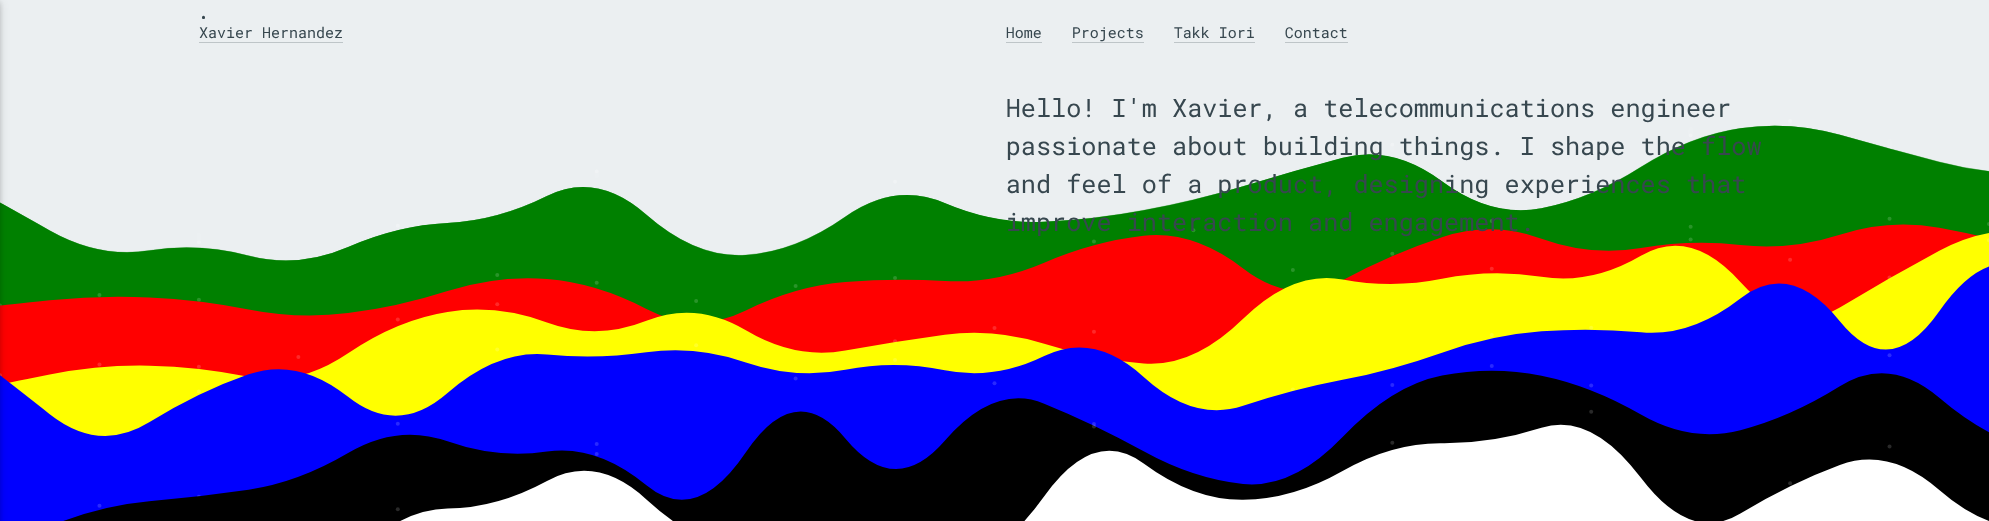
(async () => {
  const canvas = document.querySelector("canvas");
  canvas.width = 1989;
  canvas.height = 521;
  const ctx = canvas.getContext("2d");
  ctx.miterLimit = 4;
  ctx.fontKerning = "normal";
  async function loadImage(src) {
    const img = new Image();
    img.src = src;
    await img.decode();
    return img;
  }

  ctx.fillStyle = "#ffffff";
  ctx.fillRect(0, 0, 1989, 521);
  ctx.drawImage(await loadImage("img/1.png"), 0, 0, 1989, 521);
})();
